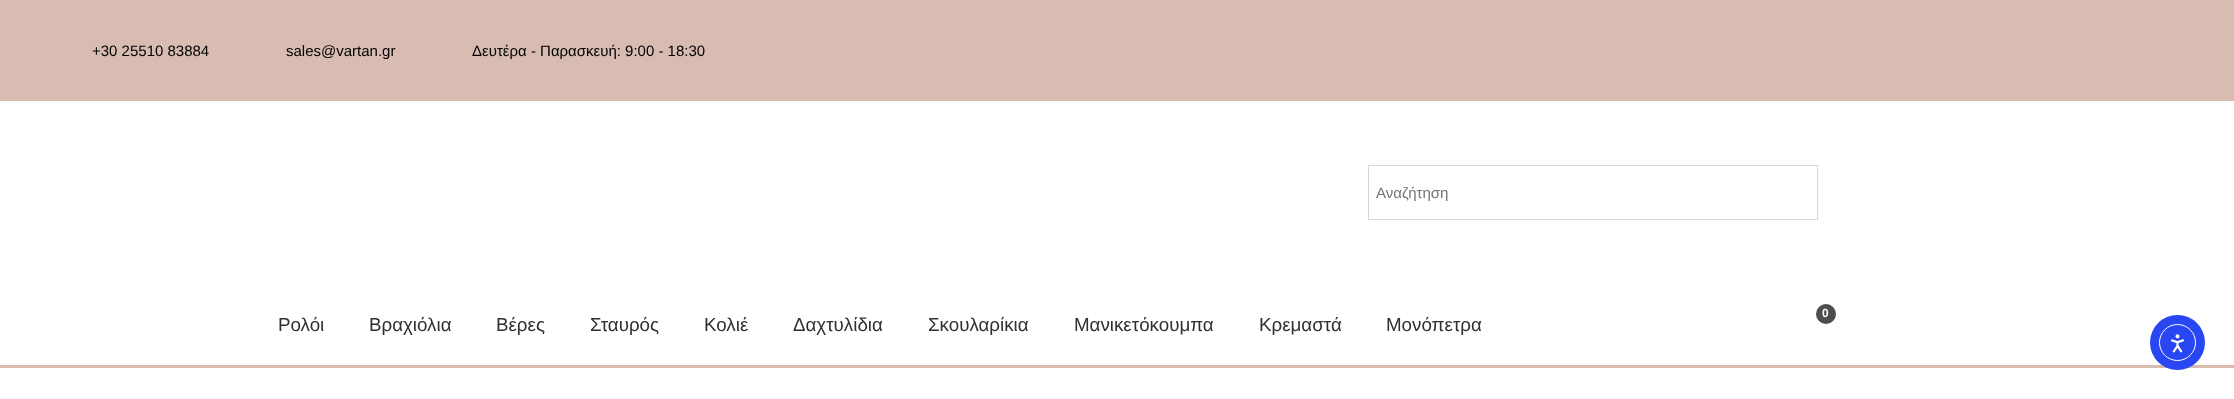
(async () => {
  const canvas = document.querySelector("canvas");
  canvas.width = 2234;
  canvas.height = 399;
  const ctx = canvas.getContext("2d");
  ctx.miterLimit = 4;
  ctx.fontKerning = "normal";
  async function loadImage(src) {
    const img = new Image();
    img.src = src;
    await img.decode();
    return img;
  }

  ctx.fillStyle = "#ffffff";
  ctx.fillRect(0, 0, 2234, 399);
  ctx.fillStyle = "#d8bbb1";
  ctx.fillRect(0, 0, 2234, 101);
  ctx.strokeStyle = "#d8d8d8";
  ctx.strokeRect(1368.5, 165.5, 449, 54);
  ctx.fillStyle = "#4d4d4d";
  ctx.beginPath();
  ctx.arc(1826, 314, 10, 0, Math.PI * 2);
  ctx.fill();
  ctx.fillStyle = "#d8bbb1";
  ctx.fillRect(0, 365, 2234, 3);
  ctx.fillStyle = "#2847f3";
  ctx.beginPath();
  ctx.arc(2177.5, 342.5, 27.5, 0, Math.PI * 2);
  ctx.fill();
  ctx.beginPath();
  ctx.arc(2177.5, 342.5, 18, 0, Math.PI * 2);
  ctx.strokeStyle = "#ffffff";
  ctx.stroke();
  ctx.drawImage(await loadImage("img/1.png"), 2170, 334, 14, 19);
  ctx.font = "15px Liberation Sans";
  ctx.fillStyle = "#000000";
  for (const [text, x, y] of [
    ["+30 25510 83884", 92, 56],
    ["sales@vartan.gr", 286, 56],
    ["Δευτέρα - Παρασκευή: 9:00 - 18:30", 472, 56],
  ]) {
    ctx.fillText(text, x, y);
  }
  ctx.save();
  ctx.beginPath();
  ctx.rect(1376, 184, 390, 17);
  ctx.clip();
  ctx.fillStyle = "#757575";
  ctx.fillText("Αναζήτηση", 1376, 198);
  ctx.restore();
  ctx.font = "bold 12px Liberation Sans";
  ctx.fillStyle = "#fffdfd";
  ctx.fillText("0", 1822, 317);
  ctx.font = "18.75px Liberation Sans";
  ctx.fillStyle = "#303030";
  for (const [text, x, y] of [
    ["Ρολόι", 278, 331],
    ["Βραχιόλια", 369, 331],
    ["Βέρες", 496, 331],
    ["Σταυρός", 590, 331],
    ["Κολιέ", 704, 331],
    ["Δαχτυλίδια", 793, 331],
    ["Σκουλαρίκια", 928, 331],
    ["Μανικετόκουμπα", 1074, 331],
    ["Κρεμαστά", 1259, 331],
    ["Μονόπετρα", 1386, 331],
  ]) {
    ctx.fillText(text, x, y);
  }
})();
